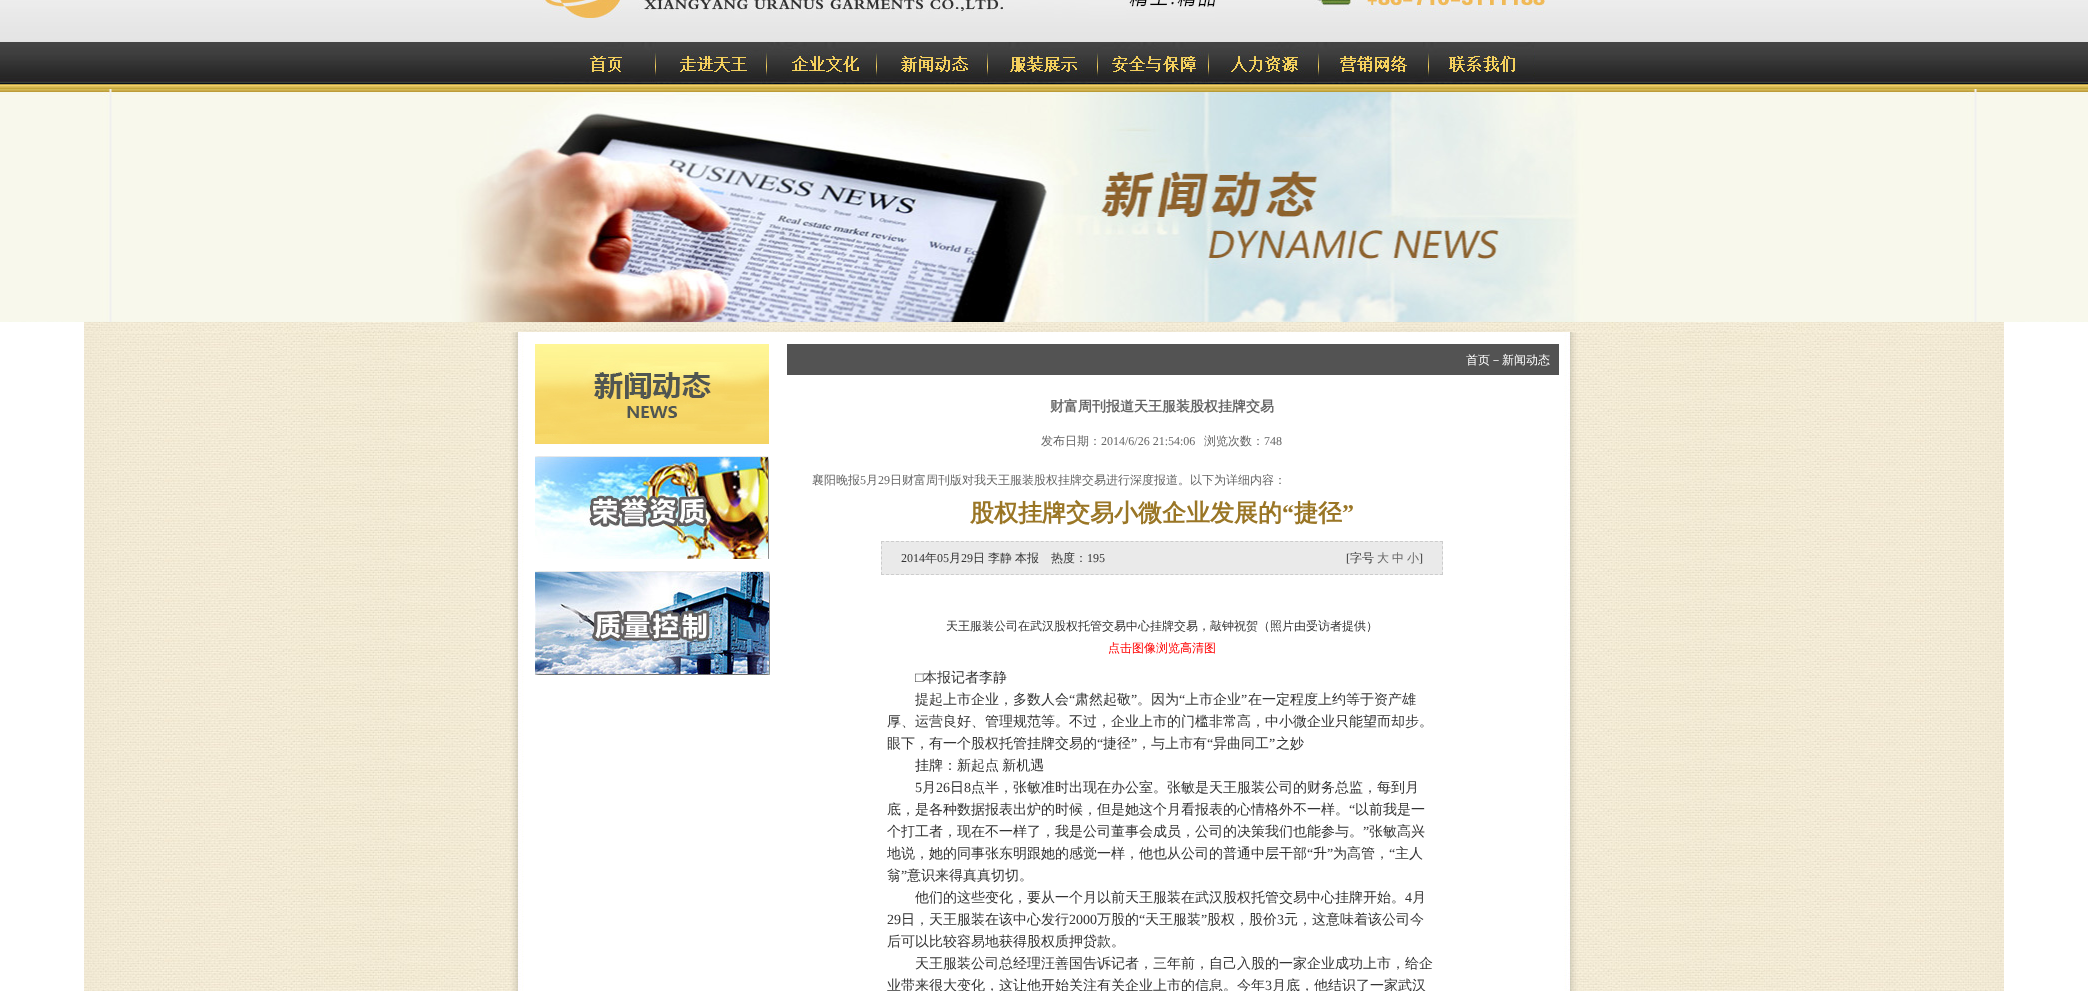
(async () => {
  const canvas = document.querySelector("canvas");
  canvas.width = 2088;
  canvas.height = 991;
  const ctx = canvas.getContext("2d");
  ctx.miterLimit = 4;
  ctx.fontKerning = "normal";
  async function loadImage(src) {
    const img = new Image();
    img.src = src;
    await img.decode();
    return img;
  }
  let path;

  ctx.fillStyle = "#ffffff";
  ctx.fillRect(0, 0, 2088, 991);
  ctx.drawImage(await loadImage("img/1.png"), 0, 0, 2088, 89);
  ctx.drawImage(await loadImage("img/2.png"), 542, 0, 673, 20);
  ctx.drawImage(await loadImage("img/3.png"), 1314, 0, 232, 12);
  ctx.drawImage(await loadImage("img/4.png"), 553, 42, 103, 42);
  ctx.drawImage(await loadImage("img/5.png"), 656, 50, 111, 34);
  ctx.drawImage(await loadImage("img/6.png"), 767, 42, 110, 42);
  ctx.drawImage(await loadImage("img/7.png"), 877, 50, 111, 34);
  ctx.drawImage(await loadImage("img/8.png"), 988, 42, 110, 42);
  ctx.drawImage(await loadImage("img/9.png"), 1098, 42, 111, 42);
  ctx.drawImage(await loadImage("img/10.png"), 1209, 42, 110, 42);
  ctx.drawImage(await loadImage("img/11.png"), 1319, 42, 110, 42);
  ctx.drawImage(await loadImage("img/12.png"), 1429, 42, 106, 42);
  ctx.drawImage(await loadImage("img/13.png"), 0, 89, 2088, 233);
  ctx.drawImage(await loadImage("img/14.png"), 84, 332, 1920, 659);
  ctx.drawImage(await loadImage("img/15.png"), 84, 322, 1920, 10);
  ctx.drawImage(await loadImage("img/16.png"), 535, 344, 234, 100);
  ctx.drawImage(await loadImage("img/17.png"), 535, 456, 234, 103);
  ctx.drawImage(await loadImage("img/18.png"), 535, 571, 235, 104);
  ctx.fillStyle = "#535353";
  ctx.fillRect(787, 344, 772, 31);
  ctx.fillStyle = "#eaeaea";
  ctx.fillRect(881, 541, 562, 34);
  path = new Path2D("M881 541.5H1443");
  ctx.strokeStyle = "#cccccc";
  ctx.setLineDash([3, 1.99]);
  ctx.stroke(path);
  path = new Path2D("M1442.5 541V575");
  ctx.setLineDash([3, 2.17]);
  ctx.stroke(path);
  path = new Path2D("M881 574.5H1443");
  ctx.setLineDash([3, 1.99]);
  ctx.stroke(path);
  path = new Path2D("M881.5 541V575");
  ctx.setLineDash([3, 2.17]);
  ctx.stroke(path);
  ctx.font = "500 12px WenQuanYi Zen Hei";
  ctx.fillStyle = "#ffffff";
  ctx.fillText("首页－新闻动态", 1466, 364);
  ctx.font = "bold 14px WenQuanYi Zen Hei";
  ctx.fillStyle = "#666666";
  ctx.fillText("财富周刊报道天王服装股权挂牌交易", 1050, 411);
  ctx.font = "500 12px WenQuanYi Zen Hei";
  ctx.fillText("发布日期：", 1041, 445);
  ctx.font = "12px Liberation Serif";
  ctx.fillText("2014/6/26 21:54:06", 1101, 445);
  ctx.font = "500 12px WenQuanYi Zen Hei";
  ctx.fillText("浏览次数：", 1204, 445);
  ctx.font = "12px Liberation Serif";
  ctx.fillText("748", 1264, 445);
  ctx.font = "500 12px WenQuanYi Zen Hei";
  ctx.fillText("襄阳晚报", 812, 484);
  ctx.font = "12px Liberation Serif";
  ctx.fillText("5", 860, 484);
  ctx.font = "500 12px WenQuanYi Zen Hei";
  ctx.fillText("月", 866, 484);
  ctx.font = "12px Liberation Serif";
  ctx.fillText("29", 878, 484);
  ctx.font = "500 12px WenQuanYi Zen Hei";
  ctx.fillText("日财富周刊版对我天王服装股权挂牌交易进行深度报道。以下为详细内容：", 890, 484);
  ctx.font = "bold 24px WenQuanYi Zen Hei";
  ctx.fillStyle = "#9a7626";
  ctx.fillText("股权挂牌交易小微企业发展的", 970, 521);
  ctx.font = "bold 24px Liberation Serif";
  ctx.fillText("“", 1282, 521);
  ctx.font = "bold 24px WenQuanYi Zen Hei";
  ctx.fillText("捷径", 1294, 521);
  ctx.font = "bold 24px Liberation Serif";
  ctx.fillText("”", 1342, 521);
  ctx.font = "12px Liberation Serif";
  ctx.fillStyle = "#333333";
  ctx.fillText("2014", 901, 562);
  ctx.font = "500 12px WenQuanYi Zen Hei";
  ctx.fillText("年", 925, 562);
  ctx.font = "12px Liberation Serif";
  ctx.fillText("05", 937, 562);
  ctx.font = "500 12px WenQuanYi Zen Hei";
  ctx.fillText("月", 949, 562);
  ctx.font = "12px Liberation Serif";
  ctx.fillText("29", 961, 562);
  ctx.font = "500 12px WenQuanYi Zen Hei";
  for (const [text, x, y] of [
    ["日", 973, 562],
    ["李静", 988, 562],
    ["本报", 1015, 562],
    ["热度：", 1051, 562],
  ]) {
    ctx.fillText(text, x, y);
  }
  ctx.font = "12px Liberation Serif";
  ctx.fillText("195", 1087, 562);
  ctx.fillText("[", 1346, 562);
  ctx.font = "500 12px WenQuanYi Zen Hei";
  ctx.fillText("字号", 1350, 562);
  ctx.fillStyle = "#666666";
  for (const [text, x, y] of [
    ["大", 1377, 562],
    ["中", 1392, 562],
    ["小", 1407, 562],
  ]) {
    ctx.fillText(text, x, y);
  }
  ctx.font = "12px Liberation Serif";
  ctx.fillStyle = "#333333";
  ctx.fillText("]", 1419, 562);
  ctx.font = "500 12px WenQuanYi Zen Hei";
  ctx.fillText("天王服装公司在武汉股权托管交易中心挂牌交易，敲钟祝贺（照片由受访者提供）", 946, 630);
  ctx.fillStyle = "#ff0000";
  ctx.fillText("点击图像浏览高清图", 1108, 652);
  ctx.font = "14px Liberation Serif";
  ctx.fillStyle = "#333333";
  ctx.fillText("□", 915, 682);
  ctx.font = "500 14px WenQuanYi Zen Hei";
  ctx.fillText("本报记者李静", 923, 682);
  ctx.fillText("提起上市企业，多数人会", 915, 704);
  ctx.font = "14px Liberation Serif";
  ctx.fillText("“", 1069, 704);
  ctx.font = "500 14px WenQuanYi Zen Hei";
  ctx.fillText("肃然起敬", 1075, 704);
  ctx.font = "14px Liberation Serif";
  ctx.fillText("”", 1131, 704);
  ctx.font = "500 14px WenQuanYi Zen Hei";
  ctx.fillText("。因为", 1137, 704);
  ctx.font = "14px Liberation Serif";
  ctx.fillText("“", 1179, 704);
  ctx.font = "500 14px WenQuanYi Zen Hei";
  ctx.fillText("上市企业", 1185, 704);
  ctx.font = "14px Liberation Serif";
  ctx.fillText("”", 1241, 704);
  ctx.font = "500 14px WenQuanYi Zen Hei";
  for (const [text, x, y] of [
    ["在一定程度上约等于资产雄", 1248, 704],
    ["厚、运营良好、管理规范等。不过，企业上市的门槛非常高，中小微企业只能望而却步。", 887, 726],
    ["眼下，有一个股权托管挂牌交易的", 887, 748],
  ]) {
    ctx.fillText(text, x, y);
  }
  ctx.font = "14px Liberation Serif";
  ctx.fillText("“", 1097, 748);
  ctx.font = "500 14px WenQuanYi Zen Hei";
  ctx.fillText("捷径", 1103, 748);
  ctx.font = "14px Liberation Serif";
  ctx.fillText("”", 1131, 748);
  ctx.font = "500 14px WenQuanYi Zen Hei";
  ctx.fillText("，与上市有", 1137, 748);
  ctx.font = "14px Liberation Serif";
  ctx.fillText("“", 1207, 748);
  ctx.font = "500 14px WenQuanYi Zen Hei";
  ctx.fillText("异曲同工", 1213, 748);
  ctx.font = "14px Liberation Serif";
  ctx.fillText("”", 1269, 748);
  ctx.font = "500 14px WenQuanYi Zen Hei";
  ctx.fillText("之妙", 1276, 748);
  ctx.wordSpacing = "-1px";
  ctx.fillText("挂牌：新起点 新机遇", 915, 770);
  ctx.wordSpacing = "0px";
  ctx.font = "14px Liberation Serif";
  ctx.fillText("5", 915, 792);
  ctx.font = "500 14px WenQuanYi Zen Hei";
  ctx.fillText("月", 922, 792);
  ctx.font = "14px Liberation Serif";
  ctx.fillText("26", 936, 792);
  ctx.font = "500 14px WenQuanYi Zen Hei";
  ctx.fillText("日", 950, 792);
  ctx.font = "14px Liberation Serif";
  ctx.fillText("8", 964, 792);
  ctx.font = "500 14px WenQuanYi Zen Hei";
  ctx.fillText("点半，张敏准时出现在办公室。张敏是天王服装公司的财务总监，每到月", 971, 792);
  ctx.fillText("底，是各种数据报表出炉的时候，但是她这个月看报表的心情格外不一样。", 887, 814);
  ctx.font = "14px Liberation Serif";
  ctx.fillText("“", 1349, 814);
  ctx.font = "500 14px WenQuanYi Zen Hei";
  ctx.fillText("以前我是一", 1355, 814);
  ctx.fillText("个打工者，现在不一样了，我是公司董事会成员，公司的决策我们也能参与。", 887, 836);
  ctx.font = "14px Liberation Serif";
  ctx.fillText("”", 1363, 836);
  ctx.font = "500 14px WenQuanYi Zen Hei";
  ctx.fillText("张敏高兴", 1369, 836);
  ctx.fillText("地说，她的同事张东明跟她的感觉一样，他也从公司的普通中层干部", 887, 858);
  ctx.font = "14px Liberation Serif";
  ctx.fillText("“", 1307, 858);
  ctx.font = "500 14px WenQuanYi Zen Hei";
  ctx.fillText("升", 1313, 858);
  ctx.font = "14px Liberation Serif";
  ctx.fillText("”", 1327, 858);
  ctx.font = "500 14px WenQuanYi Zen Hei";
  ctx.fillText("为高管，", 1333, 858);
  ctx.font = "14px Liberation Serif";
  ctx.fillText("“", 1389, 858);
  ctx.font = "500 14px WenQuanYi Zen Hei";
  ctx.fillText("主人", 1395, 858);
  ctx.fillText("翁", 887, 880);
  ctx.font = "14px Liberation Serif";
  ctx.fillText("”", 901, 880);
  ctx.font = "500 14px WenQuanYi Zen Hei";
  ctx.fillText("意识来得真真切切。", 907, 880);
  ctx.fillText("他们的这些变化，要从一个月以前天王服装在武汉股权托管交易中心挂牌开始。", 915, 902);
  ctx.font = "14px Liberation Serif";
  ctx.fillText("4", 1405, 902);
  ctx.font = "500 14px WenQuanYi Zen Hei";
  ctx.fillText("月", 1412, 902);
  ctx.font = "14px Liberation Serif";
  ctx.fillText("29", 887, 924);
  ctx.font = "500 14px WenQuanYi Zen Hei";
  ctx.fillText("日，天王服装在该中心发行", 901, 924);
  ctx.font = "14px Liberation Serif";
  ctx.fillText("2000", 1069, 924);
  ctx.font = "500 14px WenQuanYi Zen Hei";
  ctx.fillText("万股的", 1097, 924);
  ctx.font = "14px Liberation Serif";
  ctx.fillText("“", 1139, 924);
  ctx.font = "500 14px WenQuanYi Zen Hei";
  ctx.fillText("天王服装", 1145, 924);
  ctx.font = "14px Liberation Serif";
  ctx.fillText("”", 1201, 924);
  ctx.font = "500 14px WenQuanYi Zen Hei";
  ctx.fillText("股权，股价", 1207, 924);
  ctx.font = "14px Liberation Serif";
  ctx.fillText("3", 1277, 924);
  ctx.font = "500 14px WenQuanYi Zen Hei";
  for (const [text, x, y] of [
    ["元，这意味着该公司今", 1284, 924],
    ["后可以比较容易地获得股权质押贷款。", 887, 946],
    ["天王服装公司总经理汪善国告诉记者，三年前，自己入股的一家企业成功上市，给企", 915, 968],
    ["业带来很大变化，这让他开始关注有关企业上市的信息。今年", 887, 990],
  ]) {
    ctx.fillText(text, x, y);
  }
  ctx.font = "14px Liberation Serif";
  ctx.fillText("3", 1265, 990);
  ctx.font = "500 14px WenQuanYi Zen Hei";
  ctx.fillText("月底，他结识了一家武汉", 1272, 990);
})();
